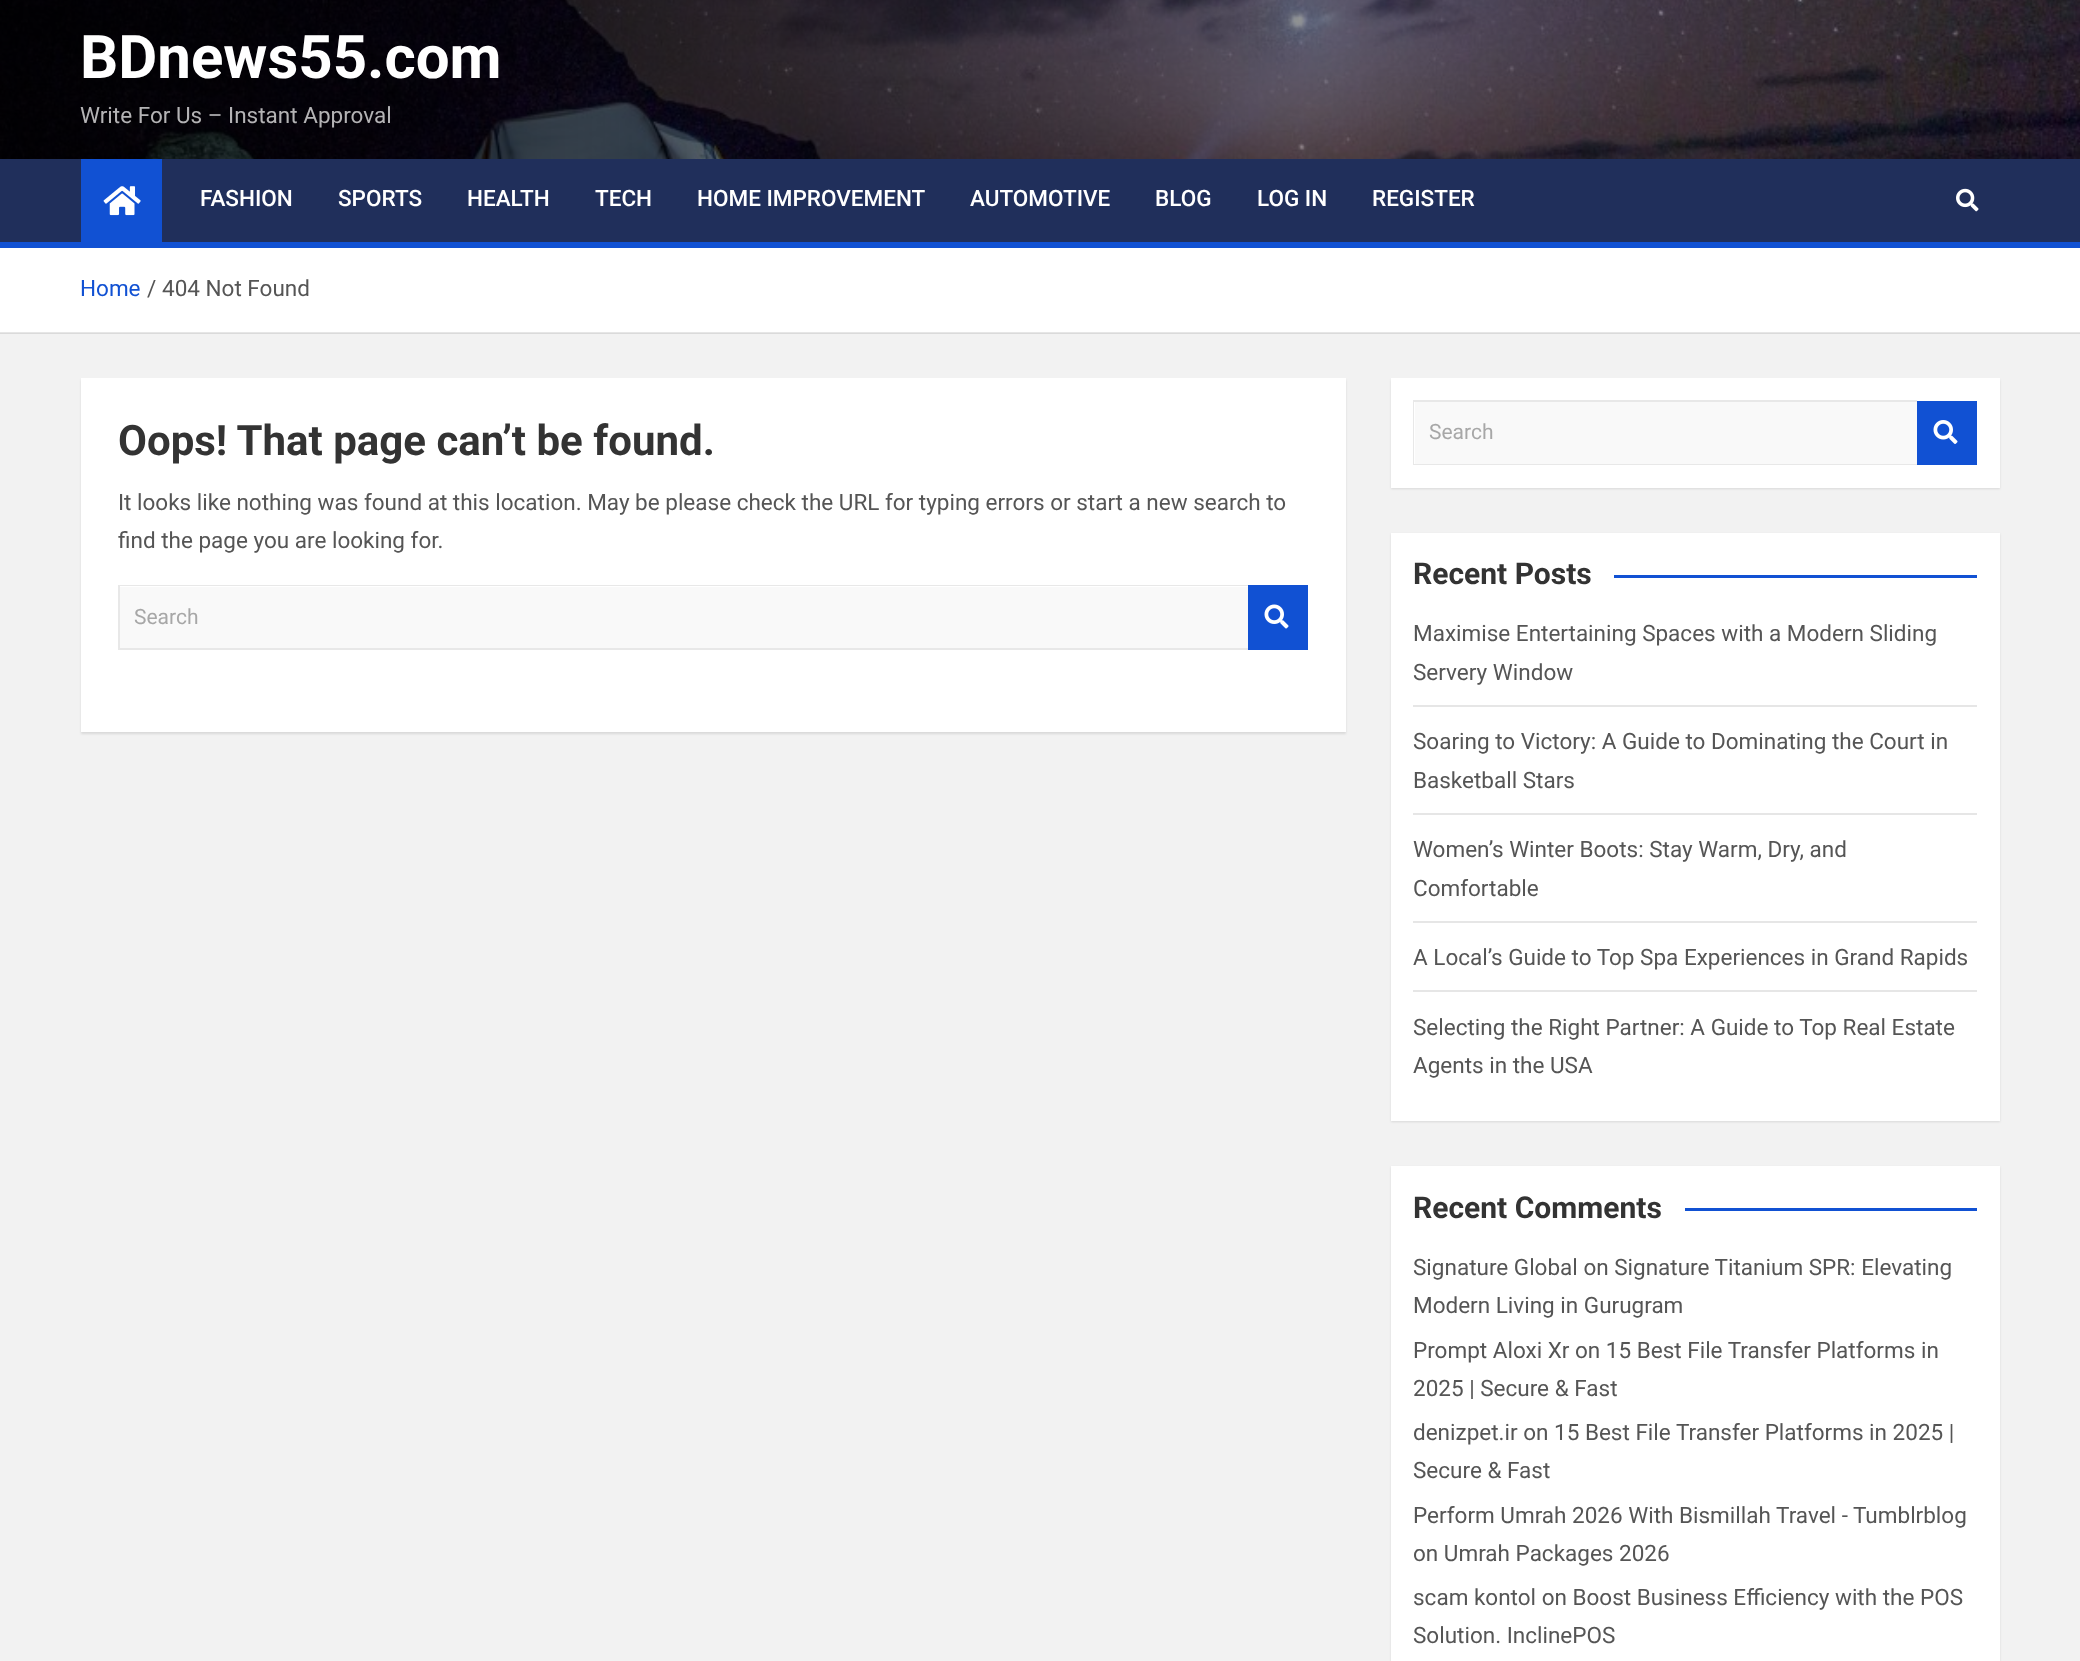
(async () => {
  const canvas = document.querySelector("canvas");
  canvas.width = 2080;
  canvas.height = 1661;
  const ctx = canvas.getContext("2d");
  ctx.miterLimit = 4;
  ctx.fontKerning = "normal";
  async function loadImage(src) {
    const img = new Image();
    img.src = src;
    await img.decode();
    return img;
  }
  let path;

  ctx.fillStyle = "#f2f2f2";
  ctx.fillRect(0, 0, 2080, 1661);
  ctx.fillStyle = "#dadada";
  ctx.fillRect(0, 333, 2080, 1);
  ctx.drawImage(await loadImage("img/1.png"), 0, 0, 2080, 159);
  for (const [x, y, w, h, color] of [
    [0, 159, 2080, 83, "#202f5b"],
    [0, 242, 2080, 6, "#1151d3"],
    [81, 159, 81, 83, "#1151d3"],
  ]) {
    ctx.fillStyle = color;
    ctx.fillRect(x, y, w, h);
  }
  ctx.drawImage(await loadImage("img/2.png"), 103, 186, 38, 30);
  ctx.drawImage(await loadImage("img/3.png"), 1956, 188, 23, 24);
  ctx.fillStyle = "#ffffff";
  ctx.fillRect(0, 248, 2080, 84);
  ctx.fillStyle = "#e6e6e6";
  ctx.fillRect(0, 332, 2080, 1);
  ctx.fillStyle = "rgba(0, 0, 0, 0.1)";
  ctx.filter = "blur(1px)";
  ctx.beginPath();
  ctx.rect(81, 380, 1265, 354);
  ctx.fill();
  ctx.filter = "none";
  ctx.fillStyle = "#ffffff";
  ctx.fillRect(81, 378, 1265, 354);
  ctx.fillStyle = "#f9f9f9";
  ctx.fillRect(120, 587, 1128, 61);
  ctx.fillStyle = "#e8e8e8";
  path = new Path2D("M118 585H1248V586H120Z");
  ctx.fill(path);
  path = new Path2D("M1248 650H118L120 648H1248Z");
  ctx.fill(path);
  ctx.fillStyle = "rgba(0, 0, 0, 0.09)";
  path = new Path2D("M118 650V585L120 586V648Z");
  ctx.fill(path);
  ctx.fillStyle = "#1151d3";
  ctx.fillRect(1248, 585, 60, 65);
  ctx.drawImage(await loadImage("img/4.png"), 1264, 604, 25, 25);
  ctx.fillStyle = "rgba(0, 0, 0, 0.1)";
  ctx.filter = "blur(1px)";
  ctx.beginPath();
  ctx.rect(1391, 380, 609, 109);
  ctx.fill();
  ctx.filter = "none";
  ctx.fillStyle = "#ffffff";
  ctx.fillRect(1391, 378, 609, 110);
  ctx.fillStyle = "#f9f9f9";
  ctx.fillRect(1415, 402, 502, 62);
  ctx.fillStyle = "#e8e8e8";
  path = new Path2D("M1413 400H1917V402H1414Z");
  ctx.fill(path);
  path = new Path2D("M1917 465H1413L1414 464H1917Z");
  ctx.fill(path);
  ctx.fillStyle = "rgba(0, 0, 0, 0.09)";
  path = new Path2D("M1413 465V400L1414 402V464Z");
  ctx.fill(path);
  ctx.fillStyle = "#1151d3";
  ctx.fillRect(1917, 401, 60, 64);
  ctx.drawImage(await loadImage("img/5.png"), 1933, 420, 25, 24);
  ctx.fillStyle = "rgba(0, 0, 0, 0.1)";
  ctx.filter = "blur(1px)";
  ctx.beginPath();
  ctx.rect(1391, 534, 609, 588);
  ctx.fill();
  ctx.filter = "none";
  for (const [x, y, w, h, color] of [
    [1391, 533, 609, 588, "#ffffff"],
    [1614, 575, 363, 3, "#1151d3"],
    [1413, 705, 564, 2, "#e6e6e6"],
    [1413, 813, 564, 2, "#e6e6e6"],
    [1413, 921, 564, 2, "#e6e6e6"],
    [1413, 990, 564, 2, "#e6e6e6"],
  ]) {
    ctx.fillStyle = color;
    ctx.fillRect(x, y, w, h);
  }
  ctx.fillStyle = "rgba(0, 0, 0, 0.1)";
  ctx.filter = "blur(1px)";
  ctx.beginPath();
  ctx.rect(1391, 1167, 609, 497);
  ctx.fill();
  ctx.filter = "none";
  ctx.fillStyle = "#ffffff";
  ctx.fillRect(1391, 1166, 609, 495);
  ctx.fillStyle = "#1151d3";
  ctx.fillRect(1685, 1208, 292, 3);
  ctx.font = "bold 60px Roboto";
  ctx.fillStyle = "#ffffff";
  ctx.fillText("BDnews55.com", 80, 78);
  ctx.font = "22.5px Roboto";
  ctx.fillStyle = "#b4b3b5";
  ctx.fillText("Write For Us – Instant Approval", 80, 123);
  ctx.font = "500 22.5px Roboto";
  ctx.fillStyle = "#ffffff";
  for (const [text, x, y] of [
    ["FASHION", 200, 206],
    ["SPORTS", 338, 206],
    ["HEALTH", 467, 206],
    ["TECH", 595, 206],
    ["HOME IMPROVEMENT", 697, 206],
    ["AUTOMOTIVE", 970, 206],
    ["BLOG", 1155, 206],
    ["LOG IN", 1257, 206],
    ["REGISTER", 1372, 206],
  ]) {
    ctx.fillText(text, x, y);
  }
  ctx.font = "22.5px Roboto";
  ctx.fillStyle = "#1151d3";
  ctx.fillText("Home", 80, 296);
  ctx.fillStyle = "#555555";
  ctx.fillText("/", 147, 296);
  ctx.fillText("404 Not Found", 162, 296);
  ctx.font = "bold 42px Roboto";
  ctx.fillStyle = "#333333";
  ctx.fillText("Oops! That page can’t be found.", 118, 455);
  ctx.font = "22.5px Roboto";
  ctx.fillStyle = "#555555";
  ctx.fillText("It looks like nothing was found at this location. May be please check the URL for typing errors or start a new search to", 118, 510);
  ctx.fillText("find the page you are looking for.", 118, 548);
  ctx.font = "21px Roboto";
  ctx.fillStyle = "#a7a7a7";
  ctx.fillText("Search", 134, 624);
  ctx.fillText("Search", 1429, 439);
  ctx.font = "bold 30px Roboto";
  ctx.fillStyle = "#333333";
  ctx.fillText("Recent Posts", 1413, 584);
  ctx.font = "22.5px Roboto";
  ctx.fillStyle = "#555555";
  for (const [text, x, y] of [
    ["Maximise Entertaining Spaces with a Modern Sliding", 1413, 641],
    ["Servery Window", 1413, 680],
    ["Soaring to Victory: A Guide to Dominating the Court in", 1413, 749],
    ["Basketball Stars", 1413, 788],
    ["Women’s Winter Boots: Stay Warm, Dry, and", 1413, 857],
    ["Comfortable", 1413, 896],
    ["A Local’s Guide to Top Spa Experiences in Grand Rapids", 1413, 965],
    ["Selecting the Right Partner: A Guide to Top Real Estate", 1413, 1035],
    ["Agents in the USA", 1413, 1073],
  ]) {
    ctx.fillText(text, x, y);
  }
  ctx.font = "bold 30px Roboto";
  ctx.fillStyle = "#333333";
  ctx.fillText("Recent Comments", 1413, 1218);
  ctx.font = "22.5px Roboto";
  ctx.fillStyle = "#555555";
  for (const [text, x, y] of [
    ["Signature Global on Signature Titanium SPR: Elevating", 1413, 1275],
    ["Modern Living in Gurugram", 1413, 1313],
    ["Prompt Aloxi Xr on 15 Best File Transfer Platforms in", 1413, 1358],
    ["2025 | Secure & Fast", 1413, 1396],
    ["denizpet.ir on 15 Best File Transfer Platforms in 2025 |", 1413, 1440],
    ["Secure & Fast", 1413, 1478],
    ["Perform Umrah 2026 With Bismillah Travel - Tumblrblog", 1413, 1523],
    ["on Umrah Packages 2026", 1413, 1561],
    ["scam kontol on Boost Business Efficiency with the POS", 1413, 1605],
    ["Solution. InclinePOS", 1413, 1643],
  ]) {
    ctx.fillText(text, x, y);
  }
})();
